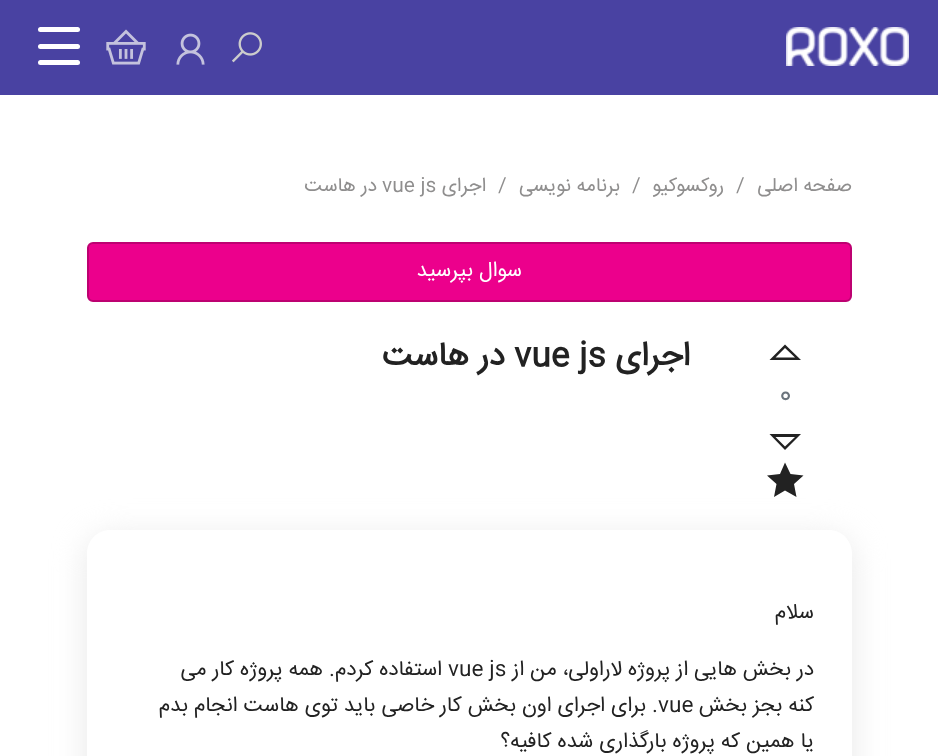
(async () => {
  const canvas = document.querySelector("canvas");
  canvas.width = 938;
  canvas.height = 756;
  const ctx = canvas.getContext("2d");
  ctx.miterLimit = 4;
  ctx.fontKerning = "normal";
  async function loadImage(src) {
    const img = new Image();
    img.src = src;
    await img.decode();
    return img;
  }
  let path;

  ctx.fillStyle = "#ffffff";
  ctx.fillRect(0, 0, 938, 756);
  ctx.fillStyle = "#4942a2";
  ctx.fillRect(0, 0, 938, 95);
  ctx.drawImage(await loadImage("img/1.png"), 786, 27, 123, 39);
  ctx.drawImage(await loadImage("img/2.png"), 232, 32, 30, 31);
  ctx.drawImage(await loadImage("img/3.png"), 176, 33, 29, 32);
  ctx.drawImage(await loadImage("img/4.png"), 106, 29, 40, 36);
  ctx.fillStyle = "#ffffff";
  ctx.beginPath();
  ctx.roundRect(38, 44, 42, 5, 2.5);
  ctx.fill();
  ctx.beginPath();
  ctx.roundRect(38, 27, 42, 5, 2.5);
  ctx.fill();
  ctx.beginPath();
  ctx.roundRect(38, 60, 42, 5, 2.5);
  ctx.fill();
  ctx.fillStyle = "#ec008c";
  ctx.beginPath();
  ctx.roundRect(88, 243, 763, 58, 5);
  ctx.fill();
  ctx.strokeStyle = "#bd0171";
  ctx.lineWidth = 2;
  ctx.stroke();
  ctx.fillStyle = "#222222";
  path = new Path2D("M785 344.5L769.5 360H801ZM785 348L795 357.5H775.5Z");
  ctx.fill(path);
  path = new Path2D("M769.5 434L785 450L801 434ZM775.5 437H795L785 446.5ZM803.5 475.5L790.5 474L785 462.5L780 474L767 475.5L776.5 484L774 497L785 490.5L796.5 497L794 484Z");
  ctx.fill(path);
  ctx.save();
  path = new Path2D("M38 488H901V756H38ZM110 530H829C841.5 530 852 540.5 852 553V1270C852 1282.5 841.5 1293 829 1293H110C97.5 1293 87 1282.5 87 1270V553C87 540.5 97.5 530 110 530Z");
  ctx.clip(path, "evenodd");
  ctx.fillStyle = "#e8e8e8";
  ctx.filter = "blur(16px)";
  ctx.beginPath();
  ctx.roundRect(87, 537, 765, 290, 23);
  ctx.fill();
  ctx.filter = "none";
  ctx.restore();
  ctx.direction = "rtl";
  ctx.font = "19.5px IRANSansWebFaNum";
  ctx.fillStyle = "#8f8e8e";
  ctx.fillText("صفحه اصلی", 852, 191);
  ctx.direction = "ltr";
  ctx.fillText("/", 736, 191);
  ctx.direction = "rtl";
  ctx.fillText("روکسوکیو", 724, 191);
  ctx.direction = "ltr";
  ctx.fillText("/", 632, 191);
  ctx.direction = "rtl";
  ctx.fillText("برنامه نویسی", 620, 191);
  ctx.direction = "ltr";
  ctx.fillText("/", 498, 191);
  ctx.direction = "rtl";
  ctx.fillText("اجرای", 486, 191);
  ctx.direction = "ltr";
  ctx.fillText("vue js", 382, 191);
  ctx.direction = "rtl";
  ctx.fillText("در هاست", 377, 191);
  ctx.font = "21px IRANSansWebFaNum";
  ctx.fillStyle = "#ffffff";
  ctx.fillText("سوال بپرسید", 522, 276);
  ctx.font = "bold 33px IRANSansWebFaNum";
  ctx.fillStyle = "#222222";
  ctx.fillText("اجرای", 690, 365);
  ctx.direction = "ltr";
  ctx.fillText("vue js", 514, 365);
  ctx.direction = "rtl";
  ctx.fillText("در هاست", 505, 365);
  ctx.direction = "ltr";
  ctx.font = "27px IRANSansWebFaNum";
  ctx.fillStyle = "#6a737c";
  ctx.fillText("0", 779, 402);
  ctx.direction = "rtl";
  ctx.font = "21px IRANSansWebFaNum";
  ctx.fillStyle = "#222222";
  ctx.fillText("سلام", 814, 618);
  ctx.fillText("در بخش هایی از پروژه لاراولی، من از", 814, 675);
  ctx.direction = "ltr";
  ctx.fillText("vue js", 448, 675);
  ctx.direction = "rtl";
  ctx.fillText("استفاده کردم. همه پروژه کار می", 442, 675);
  ctx.fillText("کنه بجز بخش", 814, 711);
  ctx.direction = "ltr";
  ctx.fillText("vue", 658, 711);
  ctx.direction = "rtl";
  ctx.fillText(". برای اجرای اون بخش کار خاصی باید توی هاست انجام بدم", 658, 711);
  ctx.fillText("یا همین که پروژه بارگذاری شده کافیه؟", 814, 747);
})();
